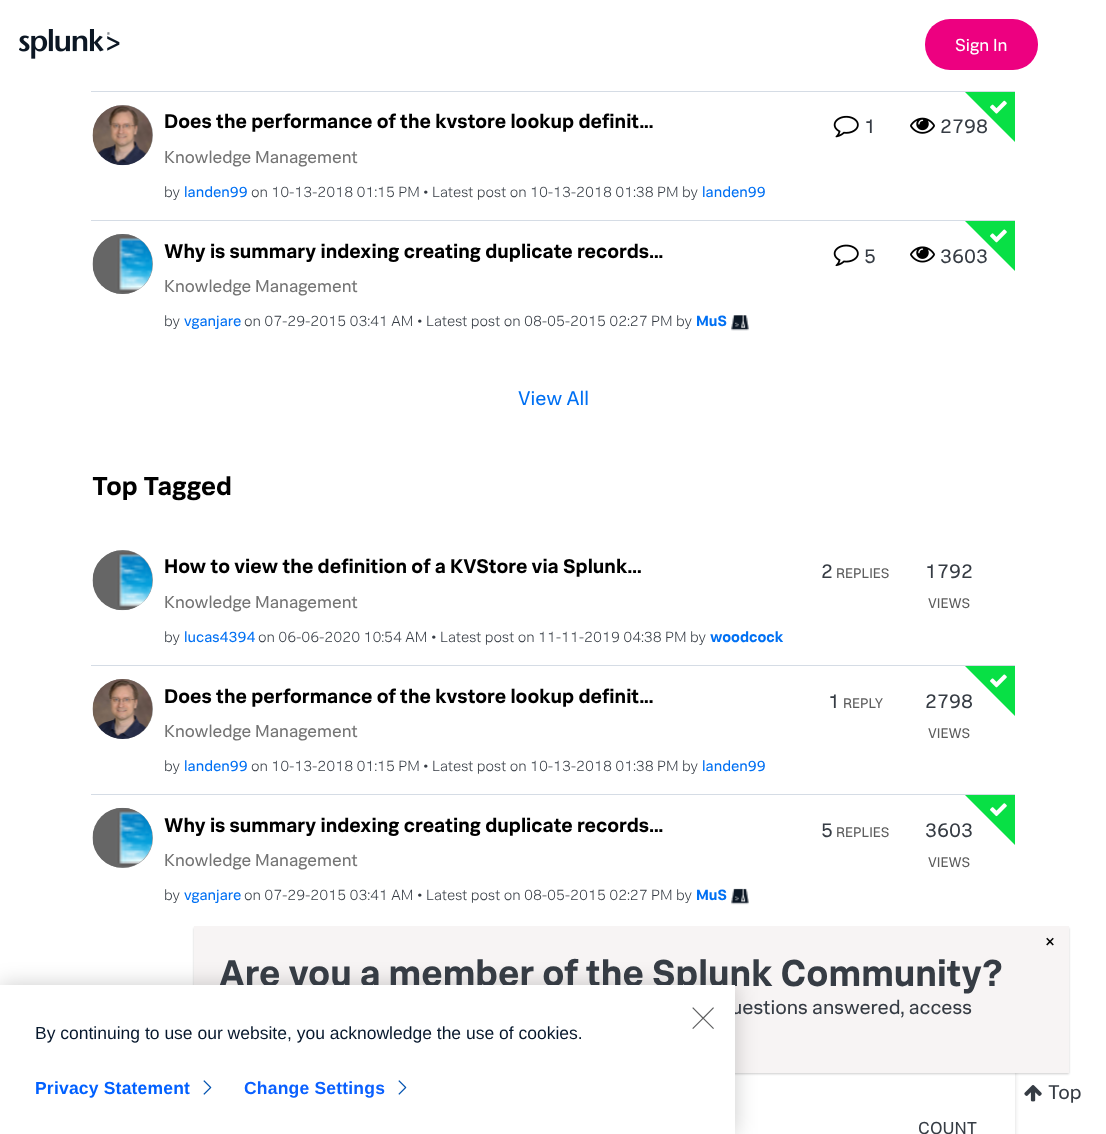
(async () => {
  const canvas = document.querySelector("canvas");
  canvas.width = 1106;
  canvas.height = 1134;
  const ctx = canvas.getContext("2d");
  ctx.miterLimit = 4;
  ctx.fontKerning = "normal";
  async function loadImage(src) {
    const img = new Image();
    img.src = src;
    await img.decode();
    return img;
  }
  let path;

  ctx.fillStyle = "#ffffff";
  ctx.fillRect(0, 0, 1106, 1134);
  ctx.drawImage(await loadImage("img/1.png"), 19, 29, 101, 30);
  ctx.fillStyle = "#ed0080";
  ctx.beginPath();
  ctx.roundRect(925, 19, 113, 51, 25);
  ctx.fill();
  ctx.fillStyle = "rgba(0, 0, 0, 0.15)";
  ctx.filter = "blur(2px)";
  ctx.beginPath();
  ctx.roundRect(563, 1033, 452, 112, 5);
  ctx.fill();
  ctx.filter = "none";
  ctx.fillStyle = "#ffffff";
  ctx.fillRect(735, 1073, 280, 61);
  ctx.fillStyle = "rgba(0, 0, 0, 0.2)";
  ctx.filter = "blur(1px)";
  ctx.beginPath();
  ctx.rect(194, 928, 875, 146);
  ctx.fill();
  ctx.filter = "none";
  ctx.fillStyle = "#f7f4f4";
  ctx.fillRect(194, 926, 875, 147);
  ctx.fillStyle = "#d5dce5";
  ctx.fillRect(91, 91, 924, 1);
  ctx.fillStyle = "#999999";
  ctx.filter = "blur(0.5px)";
  ctx.beginPath();
  ctx.roundRect(93, 105, 60, 60, 30);
  ctx.fill();
  ctx.filter = "none";
  ctx.drawImage(await loadImage("img/2.png"), 92, 105, 61, 61);
  ctx.drawImage(await loadImage("img/3.png"), 833, 115, 26, 23);
  ctx.drawImage(await loadImage("img/4.png"), 910, 117, 25, 17);
  ctx.fillStyle = "#d5dce5";
  ctx.fillRect(91, 220, 924, 1);
  ctx.fillStyle = "#999999";
  ctx.filter = "blur(0.5px)";
  ctx.beginPath();
  ctx.roundRect(93, 234, 60, 60, 30);
  ctx.fill();
  ctx.filter = "none";
  ctx.drawImage(await loadImage("img/6.png"), 92, 234, 61, 60);
  ctx.drawImage(await loadImage("img/7.png"), 731, 315, 18, 16);
  ctx.drawImage(await loadImage("img/8.png"), 833, 244, 26, 23);
  ctx.drawImage(await loadImage("img/9.png"), 910, 246, 25, 17);
  ctx.filter = "blur(0.5px)";
  ctx.beginPath();
  ctx.roundRect(93, 550, 60, 60, 30);
  ctx.fill();
  ctx.filter = "none";
  ctx.drawImage(await loadImage("img/11.png"), 92, 550, 61, 61);
  ctx.fillStyle = "#d5dce5";
  ctx.fillRect(91, 665, 924, 1);
  ctx.fillStyle = "#999999";
  ctx.filter = "blur(0.5px)";
  ctx.beginPath();
  ctx.roundRect(93, 679, 60, 60, 30);
  ctx.fill();
  ctx.filter = "none";
  ctx.drawImage(await loadImage("img/12.png"), 92, 679, 61, 60);
  ctx.fillStyle = "#d5dce5";
  ctx.fillRect(91, 794, 924, 1);
  ctx.fillStyle = "#999999";
  ctx.filter = "blur(0.5px)";
  ctx.beginPath();
  ctx.roundRect(93, 808, 60, 60, 30);
  ctx.fill();
  ctx.filter = "none";
  ctx.drawImage(await loadImage("img/13.png"), 92, 807, 61, 61);
  ctx.drawImage(await loadImage("img/14.png"), 731, 888, 18, 17);
  ctx.drawImage(await loadImage("img/16.png"), 1024, 1085, 18, 17);
  ctx.fillStyle = "rgba(0, 0, 0, 0.2)";
  ctx.filter = "blur(11px)";
  ctx.beginPath();
  ctx.rect(0, 985, 735, 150);
  ctx.fill();
  ctx.filter = "none";
  ctx.font = "17.5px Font";
  ctx.fillStyle = "#ffffff";
  ctx.fillText("Sign In", 955, 51);
  ctx.font = "20px Font";
  ctx.fillStyle = "#000000";
  ctx.fillText("×", 1044, 948);
  ctx.font = "bold 37.5px Font";
  ctx.fillStyle = "#363c44";
  ctx.fillText("Are you a member of the Splunk Community?", 219, 986);
  ctx.font = "20px Font";
  ctx.fillText("uestions answered, access", 731, 1014);
  ctx.font = "bold 20px Font";
  ctx.fillStyle = "#000000";
  ctx.fillText("Does the performance of the kvstore lookup definit...", 164, 128);
  ctx.font = "17.4px Font";
  ctx.fillStyle = "#747474";
  ctx.fillText("Knowledge Management", 164, 163);
  ctx.font = "300 15px Font";
  ctx.fillStyle = "#363c44";
  ctx.fillText("by", 164, 197);
  ctx.font = "15px Font";
  ctx.fillStyle = "#0070f3";
  ctx.fillText("landen99", 184, 197);
  ctx.font = "300 15px Font";
  ctx.fillStyle = "#363c44";
  ctx.fillText("on 10-13-2018 01:15 PM", 251, 197);
  ctx.font = "300 17.5px Font";
  ctx.fillText("•", 423, 197);
  ctx.font = "300 15px Font";
  ctx.fillText("Latest post on 10-13-2018 01:38 PM by", 432, 197);
  ctx.font = "15px Font";
  ctx.fillStyle = "#0070f3";
  ctx.fillText("landen99", 702, 197);
  ctx.font = "20px Font";
  ctx.fillStyle = "#363c44";
  ctx.fillText("1", 864, 133);
  ctx.fillText("2798", 940, 133);
  ctx.fillStyle = "#08e045";
  path = new Path2D("M965 92H1015V142Z");
  ctx.fill(path);
  ctx.drawImage(await loadImage("img/5.png"), 990, 100, 17, 14);
  ctx.font = "bold 20px Font";
  ctx.fillStyle = "#000000";
  ctx.fillText("Why is summary indexing creating duplicate records...", 164, 258);
  ctx.font = "17.4px Font";
  ctx.fillStyle = "#747474";
  ctx.fillText("Knowledge Management", 164, 292);
  ctx.font = "300 15px Font";
  ctx.fillStyle = "#363c44";
  ctx.fillText("by", 164, 326);
  ctx.font = "15px Font";
  ctx.fillStyle = "#0070f3";
  ctx.fillText("vganjare", 184, 326);
  ctx.font = "300 15px Font";
  ctx.fillStyle = "#363c44";
  ctx.fillText("on 07-29-2015 03:41 AM", 244, 326);
  ctx.font = "300 17.5px Font";
  ctx.fillText("•", 417, 326);
  ctx.font = "300 15px Font";
  ctx.fillText("Latest post on 08-05-2015 02:27 PM by", 426, 326);
  ctx.font = "bold 15px Font";
  ctx.fillStyle = "#0070f3";
  ctx.fillText("MuS", 696, 326);
  ctx.font = "20px Font";
  ctx.fillStyle = "#363c44";
  ctx.fillText("5", 864, 263);
  ctx.fillText("3603", 940, 263);
  ctx.fillStyle = "#08e045";
  path = new Path2D("M965 221H1015V271Z");
  ctx.fill(path);
  ctx.drawImage(await loadImage("img/10.png"), 990, 229, 17, 14);
  ctx.fillStyle = "#0070f3";
  ctx.fillText("View All", 518, 405);
  ctx.font = "bold 26.25px Font";
  ctx.fillStyle = "#000000";
  ctx.fillText("Top Tagged", 92, 495);
  ctx.font = "bold 20px Font";
  ctx.fillText("How to view the definition of a KVStore via Splunk...", 164, 573);
  ctx.font = "17.4px Font";
  ctx.fillStyle = "#747474";
  ctx.fillText("Knowledge Management", 164, 608);
  ctx.font = "300 15px Font";
  ctx.fillStyle = "#363c44";
  ctx.fillText("by", 164, 642);
  ctx.font = "15px Font";
  ctx.fillStyle = "#0070f3";
  ctx.fillText("lucas4394", 184, 642);
  ctx.font = "300 15px Font";
  ctx.fillStyle = "#363c44";
  ctx.fillText("on 06-06-2020 10:54 AM", 258, 642);
  ctx.font = "300 17.5px Font";
  ctx.fillText("•", 431, 642);
  ctx.font = "300 15px Font";
  ctx.fillText("Latest post on 11-11-2019 04:38 PM by", 440, 642);
  ctx.font = "bold 15px Font";
  ctx.fillStyle = "#0070f3";
  ctx.fillText("woodcock", 710, 642);
  ctx.font = "20px Font";
  ctx.fillStyle = "#363c44";
  ctx.fillText("2", 821, 578);
  ctx.font = "14px Font";
  ctx.fillStyle = "#5d5d5d";
  ctx.fillText("REPLIES", 836, 578);
  ctx.font = "20px Font";
  ctx.fillStyle = "#363c44";
  ctx.fillText("1792", 925, 578);
  ctx.font = "14px Font";
  ctx.fillStyle = "#5d5d5d";
  ctx.fillText("VIEWS", 928, 608);
  ctx.font = "bold 20px Font";
  ctx.fillStyle = "#000000";
  ctx.fillText("Does the performance of the kvstore lookup definit...", 164, 703);
  ctx.font = "17.4px Font";
  ctx.fillStyle = "#747474";
  ctx.fillText("Knowledge Management", 164, 737);
  ctx.font = "300 15px Font";
  ctx.fillStyle = "#363c44";
  ctx.fillText("by", 164, 771);
  ctx.font = "15px Font";
  ctx.fillStyle = "#0070f3";
  ctx.fillText("landen99", 184, 771);
  ctx.font = "300 15px Font";
  ctx.fillStyle = "#363c44";
  ctx.fillText("on 10-13-2018 01:15 PM", 251, 771);
  ctx.font = "300 17.5px Font";
  ctx.fillText("•", 423, 771);
  ctx.font = "300 15px Font";
  ctx.fillText("Latest post on 10-13-2018 01:38 PM by", 432, 771);
  ctx.font = "15px Font";
  ctx.fillStyle = "#0070f3";
  ctx.fillText("landen99", 702, 771);
  ctx.font = "20px Font";
  ctx.fillStyle = "#363c44";
  ctx.fillText("1", 828, 708);
  ctx.font = "14px Font";
  ctx.fillStyle = "#5d5d5d";
  ctx.fillText("REPLY", 843, 708);
  ctx.font = "20px Font";
  ctx.fillStyle = "#363c44";
  ctx.fillText("2798", 925, 708);
  ctx.font = "14px Font";
  ctx.fillStyle = "#5d5d5d";
  ctx.fillText("VIEWS", 928, 738);
  ctx.fillStyle = "#08e045";
  path = new Path2D("M965 666H1015V716Z");
  ctx.fill(path);
  ctx.drawImage(await loadImage("img/10.png"), 990, 674, 17, 14);
  ctx.font = "bold 20px Font";
  ctx.fillStyle = "#000000";
  ctx.fillText("Why is summary indexing creating duplicate records...", 164, 832);
  ctx.font = "17.4px Font";
  ctx.fillStyle = "#747474";
  ctx.fillText("Knowledge Management", 164, 866);
  ctx.font = "300 15px Font";
  ctx.fillStyle = "#363c44";
  ctx.fillText("by", 164, 900);
  ctx.font = "15px Font";
  ctx.fillStyle = "#0070f3";
  ctx.fillText("vganjare", 184, 900);
  ctx.font = "300 15px Font";
  ctx.fillStyle = "#363c44";
  ctx.fillText("on 07-29-2015 03:41 AM", 244, 900);
  ctx.font = "300 17.5px Font";
  ctx.fillText("•", 417, 900);
  ctx.font = "300 15px Font";
  ctx.fillText("Latest post on 08-05-2015 02:27 PM by", 426, 900);
  ctx.font = "bold 15px Font";
  ctx.fillStyle = "#0070f3";
  ctx.fillText("MuS", 696, 900);
  ctx.font = "20px Font";
  ctx.fillStyle = "#363c44";
  ctx.fillText("5", 821, 837);
  ctx.font = "14px Font";
  ctx.fillStyle = "#5d5d5d";
  ctx.fillText("REPLIES", 836, 837);
  ctx.font = "20px Font";
  ctx.fillStyle = "#363c44";
  ctx.fillText("3603", 925, 837);
  ctx.font = "14px Font";
  ctx.fillStyle = "#5d5d5d";
  ctx.fillText("VIEWS", 928, 867);
  ctx.fillStyle = "#08e045";
  path = new Path2D("M965 795H1015V845Z");
  ctx.fill(path);
  ctx.drawImage(await loadImage("img/15.png"), 990, 803, 17, 14);
  ctx.font = "17.5px Font";
  ctx.fillStyle = "#363c44";
  ctx.fillText("COUNT", 918, 1134);
  ctx.font = "20px Font";
  ctx.fillText("Top", 1048, 1099);
  ctx.fillStyle = "#ffffff";
  ctx.fillRect(0, 985, 735, 149);
  ctx.drawImage(await loadImage("img/17.png"), 692, 1007, 22, 22);
  ctx.font = "17.5px Liberation Sans";
  ctx.fillStyle = "#07182d";
  ctx.fillText("By continuing to use our website, you acknowledge the use of cookies.", 35, 1039);
  ctx.letterSpacing = "0.2px";
  ctx.font = "bold 17.5px Liberation Sans";
  ctx.fillStyle = "#0060ff";
  ctx.fillText("Privacy Statement", 35, 1094);
  ctx.drawImage(await loadImage("img/18.png"), 203, 1080, 9, 15);
  ctx.fillStyle = "#0a60ff";
  ctx.fillText("Change Settings", 244, 1094);
  ctx.drawImage(await loadImage("img/18.png"), 398, 1080, 9, 15);
})();
